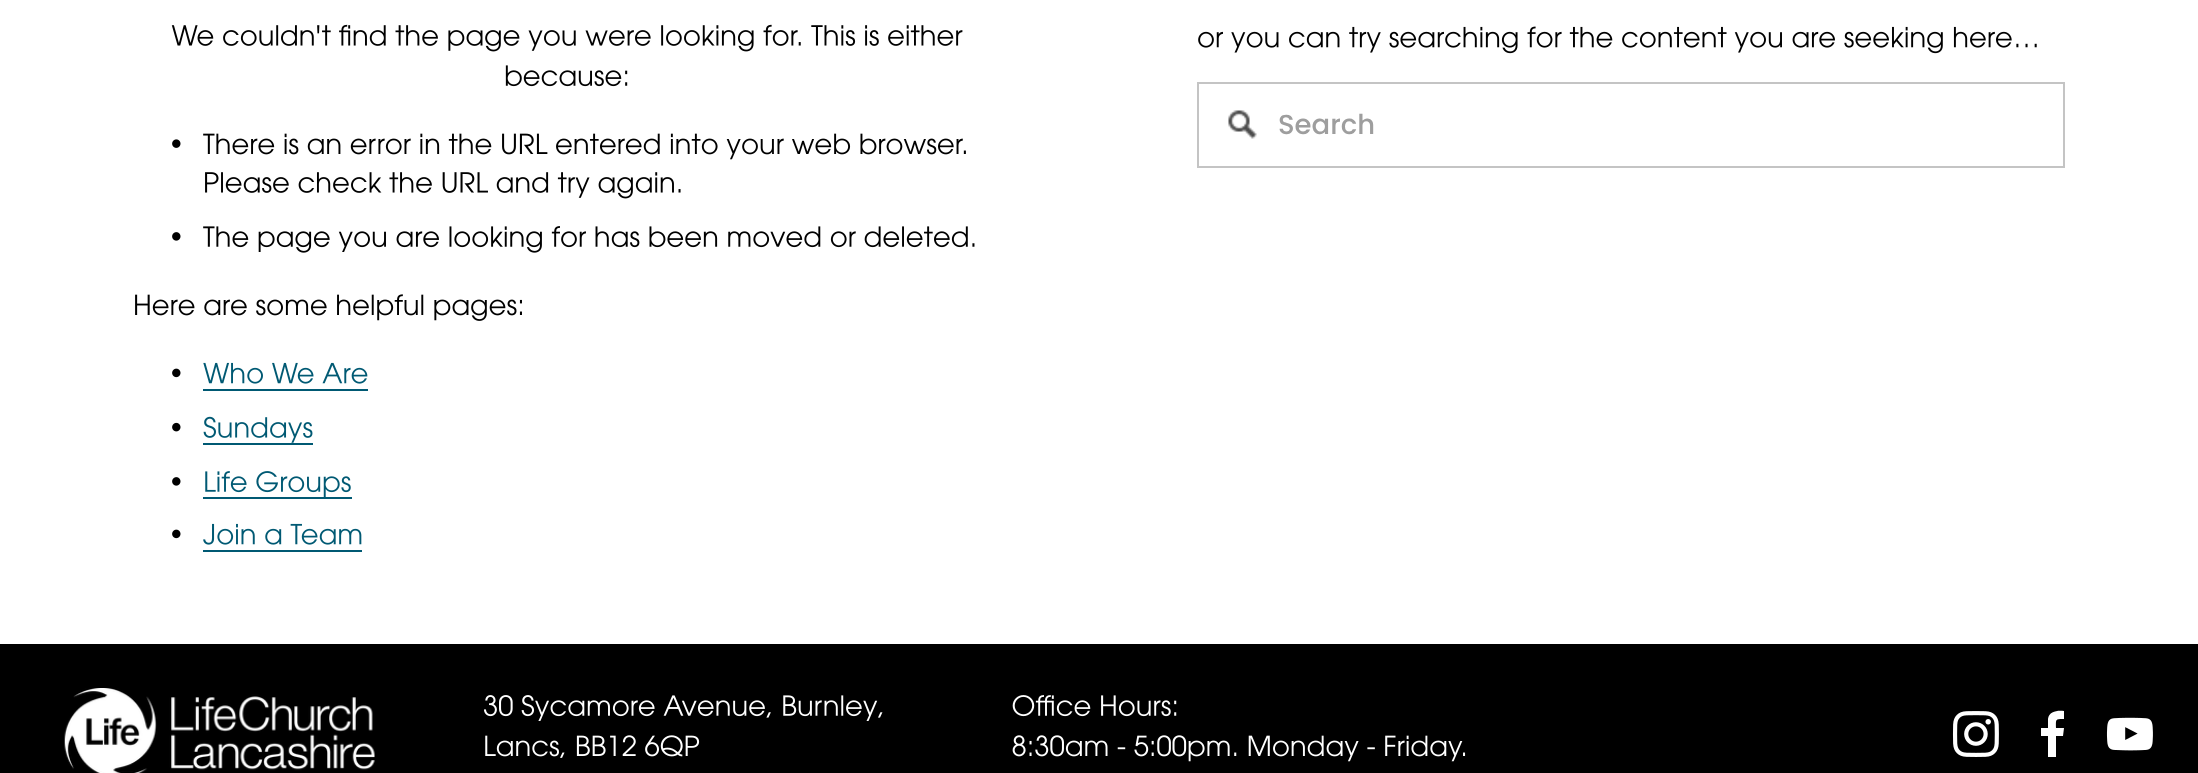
(async () => {
  const canvas = document.querySelector("canvas");
  canvas.width = 2198;
  canvas.height = 773;
  const ctx = canvas.getContext("2d");
  ctx.miterLimit = 4;
  ctx.fontKerning = "normal";
  async function loadImage(src) {
    const img = new Image();
    img.src = src;
    await img.decode();
    return img;
  }
  let path;

  ctx.fillStyle = "#ffffff";
  ctx.fillRect(0, 0, 2198, 773);
  ctx.drawImage(await loadImage("img/1.png"), 171, 24, 792, 28);
  ctx.drawImage(await loadImage("img/2.png"), 505, 65, 123, 22);
  ctx.drawImage(await loadImage("img/3.png"), 172, 139, 9, 9);
  ctx.drawImage(await loadImage("img/4.png"), 203, 133, 763, 27);
  ctx.drawImage(await loadImage("img/5.png"), 205, 172, 476, 27);
  ctx.drawImage(await loadImage("img/6.png"), 172, 232, 9, 9);
  ctx.drawImage(await loadImage("img/7.png"), 203, 226, 772, 27);
  ctx.drawImage(await loadImage("img/8.png"), 135, 294, 387, 27);
  ctx.drawImage(await loadImage("img/9.png"), 172, 368, 9, 10);
  ctx.drawImage(await loadImage("img/10.png"), 203, 362, 165, 22);
  ctx.fillStyle = "#005973";
  ctx.fillRect(203, 389, 165, 2);
  ctx.drawImage(await loadImage("img/11.png"), 172, 422, 9, 10);
  ctx.drawImage(await loadImage("img/12.png"), 203, 416, 110, 27);
  ctx.fillRect(203, 443, 110, 2);
  ctx.drawImage(await loadImage("img/6.png"), 172, 477, 9, 9);
  ctx.drawImage(await loadImage("img/13.png"), 205, 471, 146, 26);
  ctx.fillRect(203, 497, 149, 2);
  ctx.drawImage(await loadImage("img/9.png"), 172, 529, 9, 10);
  ctx.drawImage(await loadImage("img/14.png"), 203, 523, 159, 22);
  ctx.fillRect(203, 550, 159, 2);
  ctx.drawImage(await loadImage("img/15.png"), 1198, 26, 839, 28);
  ctx.drawImage(await loadImage("img/16.png"), 1228, 110, 29, 29);
  ctx.strokeStyle = "#c4c4c4";
  ctx.lineWidth = 2;
  ctx.strokeRect(1198, 83, 866, 84);
  ctx.fillStyle = "#000000";
  ctx.fillRect(0, 644, 2198, 129);
  ctx.drawImage(await loadImage("img/17.png"), 64, 688, 311, 85);
  ctx.drawImage(await loadImage("img/18.png"), 484, 695, 399, 26);
  ctx.drawImage(await loadImage("img/19.png"), 485, 735, 215, 23);
  ctx.drawImage(await loadImage("img/20.png"), 1012, 695, 165, 22);
  ctx.drawImage(await loadImage("img/21.png"), 1012, 735, 454, 27);
  ctx.drawImage(await loadImage("img/22.png"), 1952, 711, 47, 46);
  ctx.fillStyle = "#ffffff";
  path = new Path2D("M2056 757V736H2063L2064 728H2056C2056 719 2055 719 2064 719V711C2058 710 2049 711 2048 719V728H2041V736H2048V757Z");
  ctx.fill(path);
  ctx.drawImage(await loadImage("img/23.png"), 2106, 717, 47, 34);
  ctx.font = "500 27.5px Poppins";
  ctx.fillStyle = "#9e9e9e";
  ctx.fillText("Search", 1278, 134);
})();
